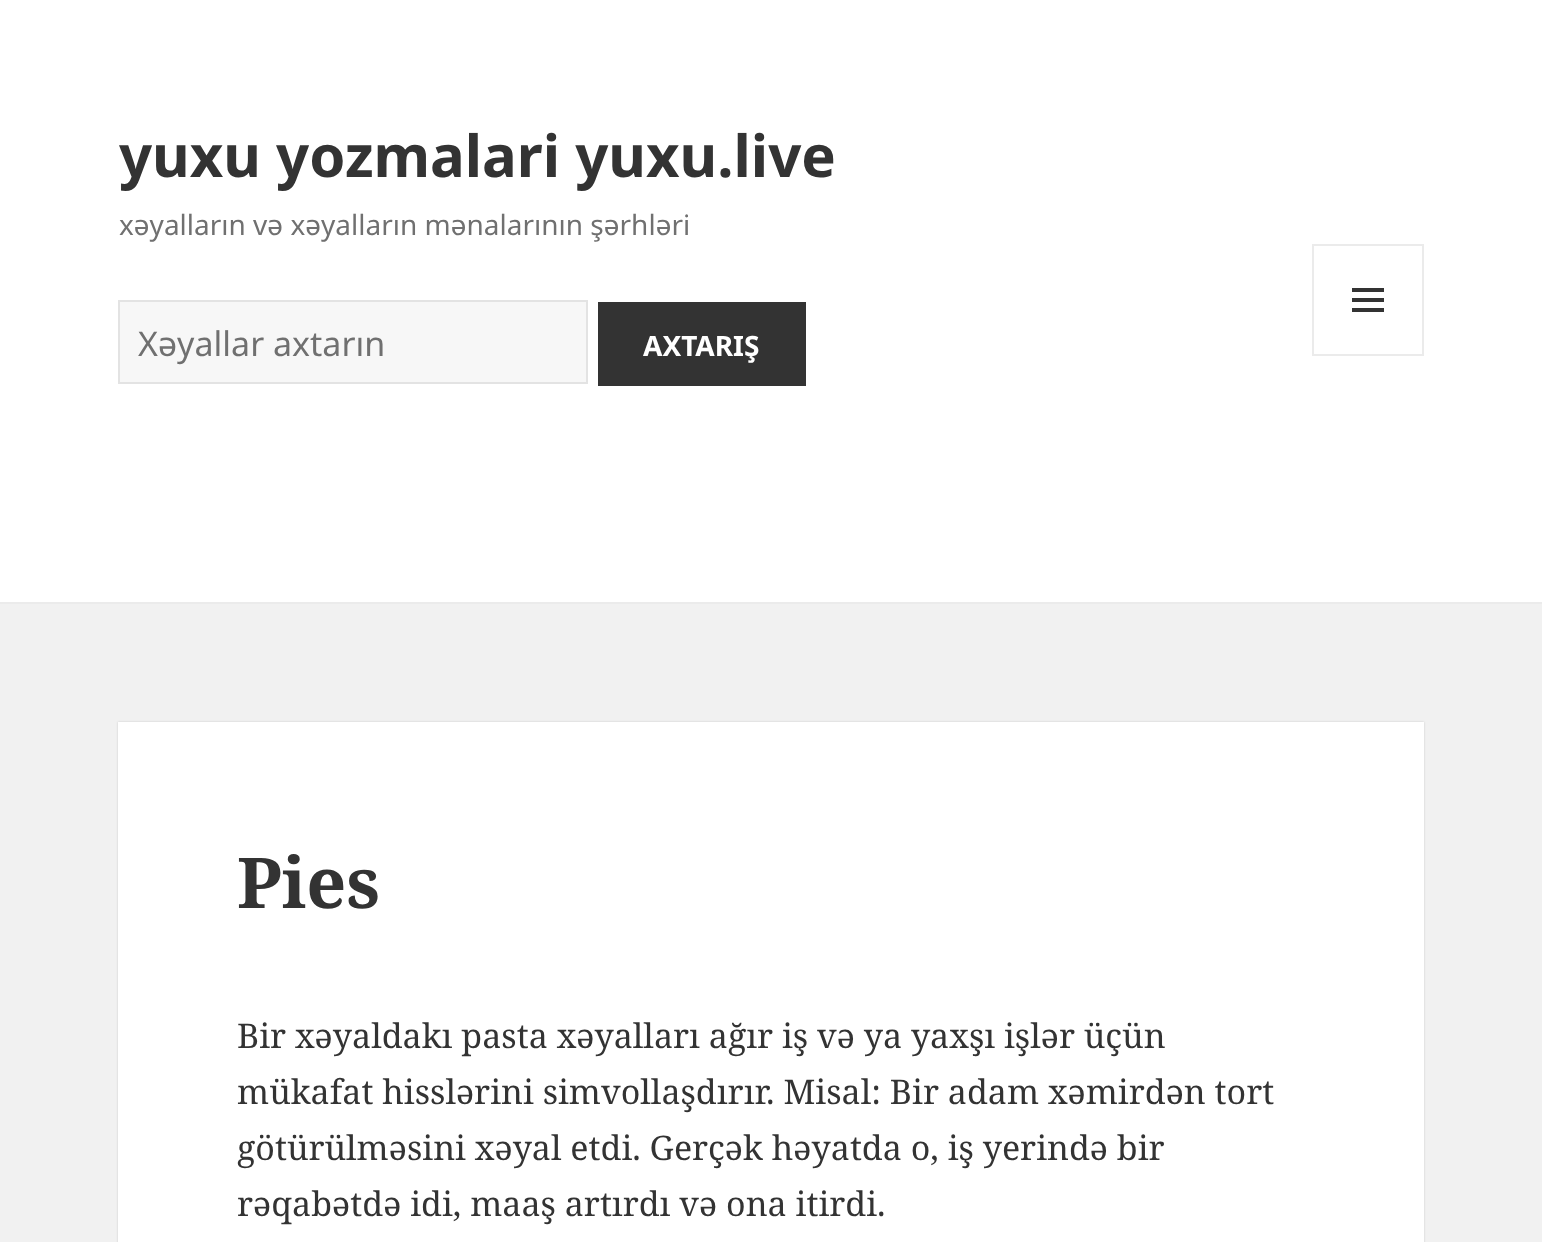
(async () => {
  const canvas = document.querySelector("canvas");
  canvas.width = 1542;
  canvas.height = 1242;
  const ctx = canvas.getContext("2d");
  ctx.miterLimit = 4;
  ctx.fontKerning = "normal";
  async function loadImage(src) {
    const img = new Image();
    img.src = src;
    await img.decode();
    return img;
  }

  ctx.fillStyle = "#f1f1f1";
  ctx.fillRect(0, 0, 1542, 1242);
  ctx.fillStyle = "#ffffff";
  ctx.fillRect(0, 0, 1542, 602);
  ctx.fillStyle = "#ebebeb";
  ctx.fillRect(0, 602, 1542, 2);
  ctx.fillStyle = "#f7f7f7";
  ctx.beginPath();
  ctx.rect(119, 301, 468, 82);
  ctx.fill();
  ctx.strokeStyle = "#e3e3e3";
  ctx.lineWidth = 2;
  ctx.stroke();
  ctx.fillStyle = "#333333";
  ctx.fillRect(598, 302, 208, 84);
  ctx.strokeStyle = "#ebebeb";
  ctx.strokeRect(1313, 245, 110, 110);
  ctx.drawImage(await loadImage("img/1.png"), 1352, 288, 32, 24);
  ctx.fillStyle = "rgba(0, 0, 0, 0.15)";
  ctx.filter = "blur(1px)";
  ctx.beginPath();
  ctx.rect(118, 722, 1306, 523);
  ctx.fill();
  ctx.filter = "none";
  ctx.fillStyle = "#ffffff";
  ctx.fillRect(118, 722, 1306, 520);
  ctx.font = "bold 58px Noto Sans";
  ctx.fillStyle = "#333333";
  ctx.fillText("yuxu yozmalari yuxu.live", 119, 177);
  ctx.font = "28px Noto Sans";
  ctx.fillStyle = "#707070";
  ctx.fillText("xəyalların və xəyalların mənalarının şərhləri", 119, 235);
  ctx.font = "34px Noto Sans";
  ctx.fillText("Xəyallar axtarın", 138, 356);
  ctx.font = "bold 28px Noto Sans";
  ctx.fillStyle = "#ffffff";
  ctx.fillText("AXTARIŞ", 643, 356);
  ctx.font = "bold 70px Noto Serif";
  ctx.fillStyle = "#333333";
  ctx.fillText("Pies", 237, 908);
  ctx.font = "34px Noto Serif";
  for (const [text, x, y] of [
    ["Bir xəyaldakı pasta xəyalları ağır iş və ya yaxşı işlər üçün", 237, 1048],
    ["mükafat hisslərini simvollaşdırır. Misal: Bir adam xəmirdən tort", 237, 1104],
    ["götürülməsini xəyal etdi. Gerçək həyatda o, iş yerində bir", 237, 1160],
    ["rəqabətdə idi, maaş artırdı və ona itirdi.", 237, 1216],
  ]) {
    ctx.fillText(text, x, y);
  }
})();
